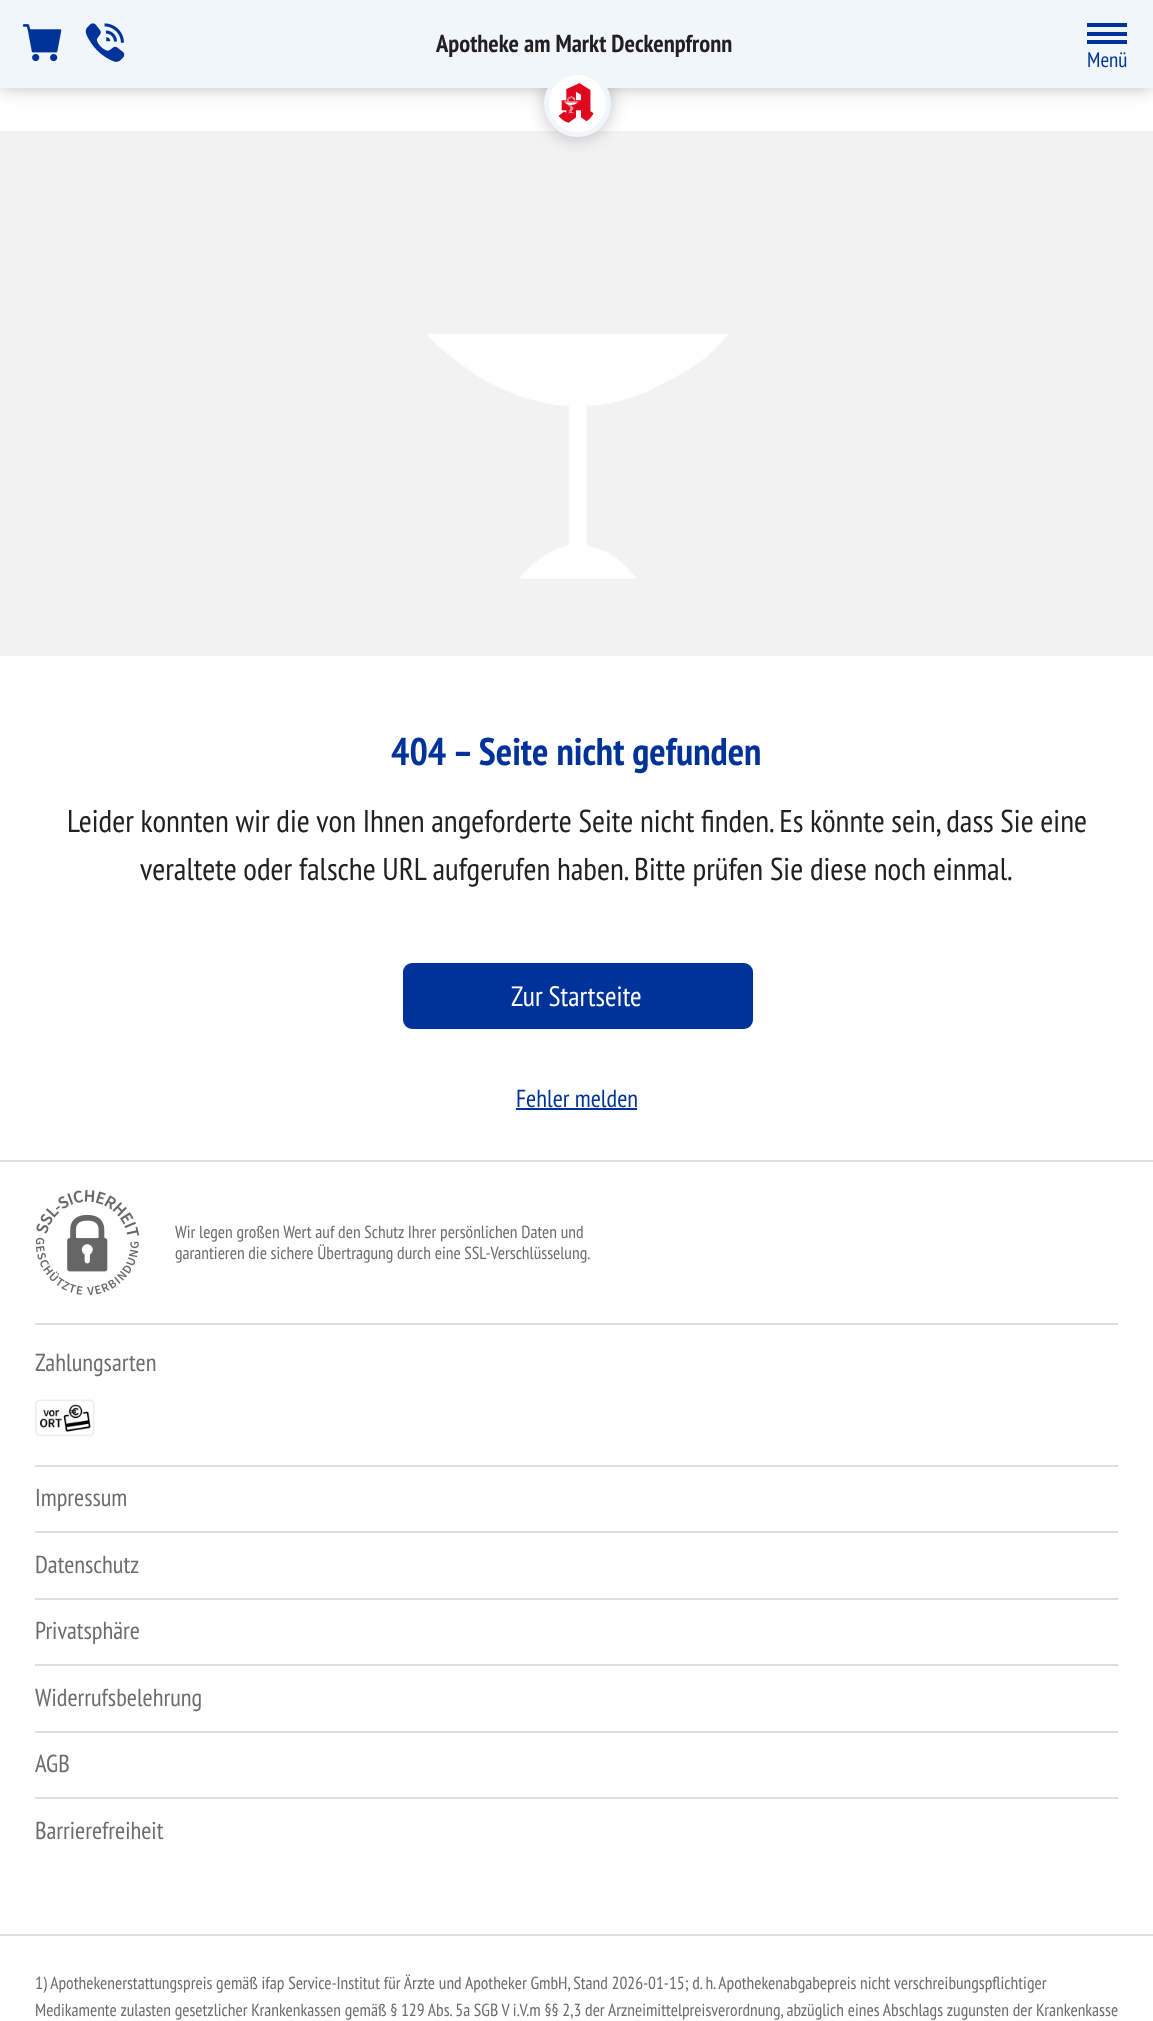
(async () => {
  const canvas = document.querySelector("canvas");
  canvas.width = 1153;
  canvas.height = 2021;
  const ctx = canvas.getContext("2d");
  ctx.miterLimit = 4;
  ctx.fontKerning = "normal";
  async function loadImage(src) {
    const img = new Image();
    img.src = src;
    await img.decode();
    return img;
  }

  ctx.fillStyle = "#ffffff";
  ctx.fillRect(0, 0, 1153, 2021);
  ctx.fillStyle = "rgba(0, 0, 0, 0.25)";
  ctx.filter = "blur(9px)";
  ctx.beginPath();
  ctx.rect(0, 0, 1153, 88);
  ctx.fill();
  ctx.filter = "none";
  ctx.fillStyle = "#f2f2f2";
  ctx.fillRect(0, 131, 1153, 525);
  ctx.fillStyle = "rgba(0, 0, 0, 0.25)";
  ctx.filter = "blur(9px)";
  ctx.beginPath();
  ctx.roundRect(544, 70, 67, 67, 33.5);
  ctx.fill();
  ctx.filter = "none";
  ctx.fillStyle = "#f1f6fb";
  ctx.fillRect(0, 0, 1153, 88);
  ctx.fillStyle = "#ffffff";
  ctx.beginPath();
  ctx.arc(577.5, 103.5, 31, 0, Math.PI * 2);
  ctx.fill();
  ctx.strokeStyle = "#f1f6fb";
  ctx.lineWidth = 5;
  ctx.stroke();
  ctx.drawImage(await loadImage("img/1.png"), 558, 83, 36, 40);
  ctx.drawImage(await loadImage("img/2.png"), 22, 24, 40, 38);
  ctx.drawImage(await loadImage("img/3.png"), 85, 23, 40, 39);
  for (const [x, y, w, h, color] of [
    [1087, 32, 40, 4, "#003399"],
    [1087, 23, 40, 4, "#003399"],
    [1087, 40, 40, 4, "#003399"],
  ]) {
    ctx.fillStyle = color;
    ctx.fillRect(x, y, w, h);
  }
  ctx.drawImage(await loadImage("img/4.png"), 427, 333, 302, 246);
  ctx.beginPath();
  ctx.roundRect(404, 964, 348, 64, 8);
  ctx.fill();
  ctx.strokeStyle = "#003399";
  ctx.lineWidth = 2;
  ctx.stroke();
  ctx.fillRect(516, 1108, 121, 2);
  ctx.fillStyle = "#dedede";
  ctx.fillRect(0, 1160, 1153, 2);
  ctx.drawImage(await loadImage("img/5.png"), 35, 1190, 105, 105);
  ctx.fillRect(35, 1323, 1083, 2);
  ctx.drawImage(await loadImage("img/6.png"), 35, 1399, 60, 38);
  for (const [x, y, w, h, color] of [
    [35, 1465, 1083, 2, "#dedede"],
    [35, 1531, 1083, 2, "#dedede"],
    [35, 1598, 1083, 2, "#dedede"],
    [35, 1664, 1083, 2, "#dedede"],
    [35, 1731, 1083, 2, "#dedede"],
    [35, 1797, 1083, 2, "#dedede"],
    [0, 1934, 1153, 2, "#dedede"],
  ]) {
    ctx.fillStyle = color;
    ctx.fillRect(x, y, w, h);
  }
  ctx.font = "bold 24.5px PT Sans Narrow";
  ctx.fillStyle = "#212121";
  ctx.fillText("Apotheke am Markt Deckenpfronn", 436, 52);
  ctx.font = "21px PT Sans Narrow";
  ctx.fillStyle = "#003399";
  ctx.fillText("Menü", 1087, 67);
  ctx.font = "bold 38.5px PT Sans Narrow";
  ctx.fillText("404 – Seite nicht gefunden", 391, 765);
  ctx.font = "31.5px PT Sans Narrow";
  ctx.fillStyle = "#212121";
  ctx.fillText("Leider konnten wir die von Ihnen angeforderte Seite nicht finden. Es könnte sein, dass Sie eine", 67, 832);
  ctx.fillText("veraltete oder falsche URL aufgerufen haben. Bitte prüfen Sie diese noch einmal.", 140, 880);
  ctx.font = "28px PT Sans Narrow";
  ctx.fillStyle = "#ffffff";
  ctx.fillText("Zur Startseite", 511, 1006);
  ctx.font = "24.5px PT Sans Narrow";
  ctx.fillStyle = "#003399";
  ctx.fillText("Fehler melden", 516, 1107);
  ctx.font = "17.5px PT Sans Narrow";
  ctx.fillStyle = "#6c6c6c";
  ctx.fillText("Wir legen großen Wert auf den Schutz Ihrer persönlichen Daten und", 175, 1238);
  ctx.fillText("garantieren die sichere Übertragung durch eine SSL-Verschlüsselung.", 175, 1259);
  ctx.font = "24.5px PT Sans Narrow";
  for (const [text, x, y] of [
    ["Zahlungsarten", 35, 1371],
    ["Impressum", 35, 1506],
    ["Datenschutz", 35, 1573],
    ["Privatsphäre", 35, 1639],
    ["Widerrufsbelehrung", 35, 1706],
    ["AGB", 35, 1772],
    ["Barrierefreiheit", 35, 1839],
  ]) {
    ctx.fillText(text, x, y);
  }
  ctx.font = "17.5px PT Sans Narrow";
  ctx.fillText("1) Apothekenerstattungspreis gemäß ifap Service-Institut für Ärzte und Apotheker GmbH, Stand 2026-01-15; d. h. Apothekenabgabepreis nicht verschreibungspflichtiger", 35, 1989);
  ctx.fillText("Medikamente zulasten gesetzlicher Krankenkassen gemäß § 129 Abs. 5a SGB V i.V.m §§ 2,3 der Arzneimittelpreisverordnung, abzüglich eines Abschlags zugunsten der Krankenkasse", 35, 2016);
})();
